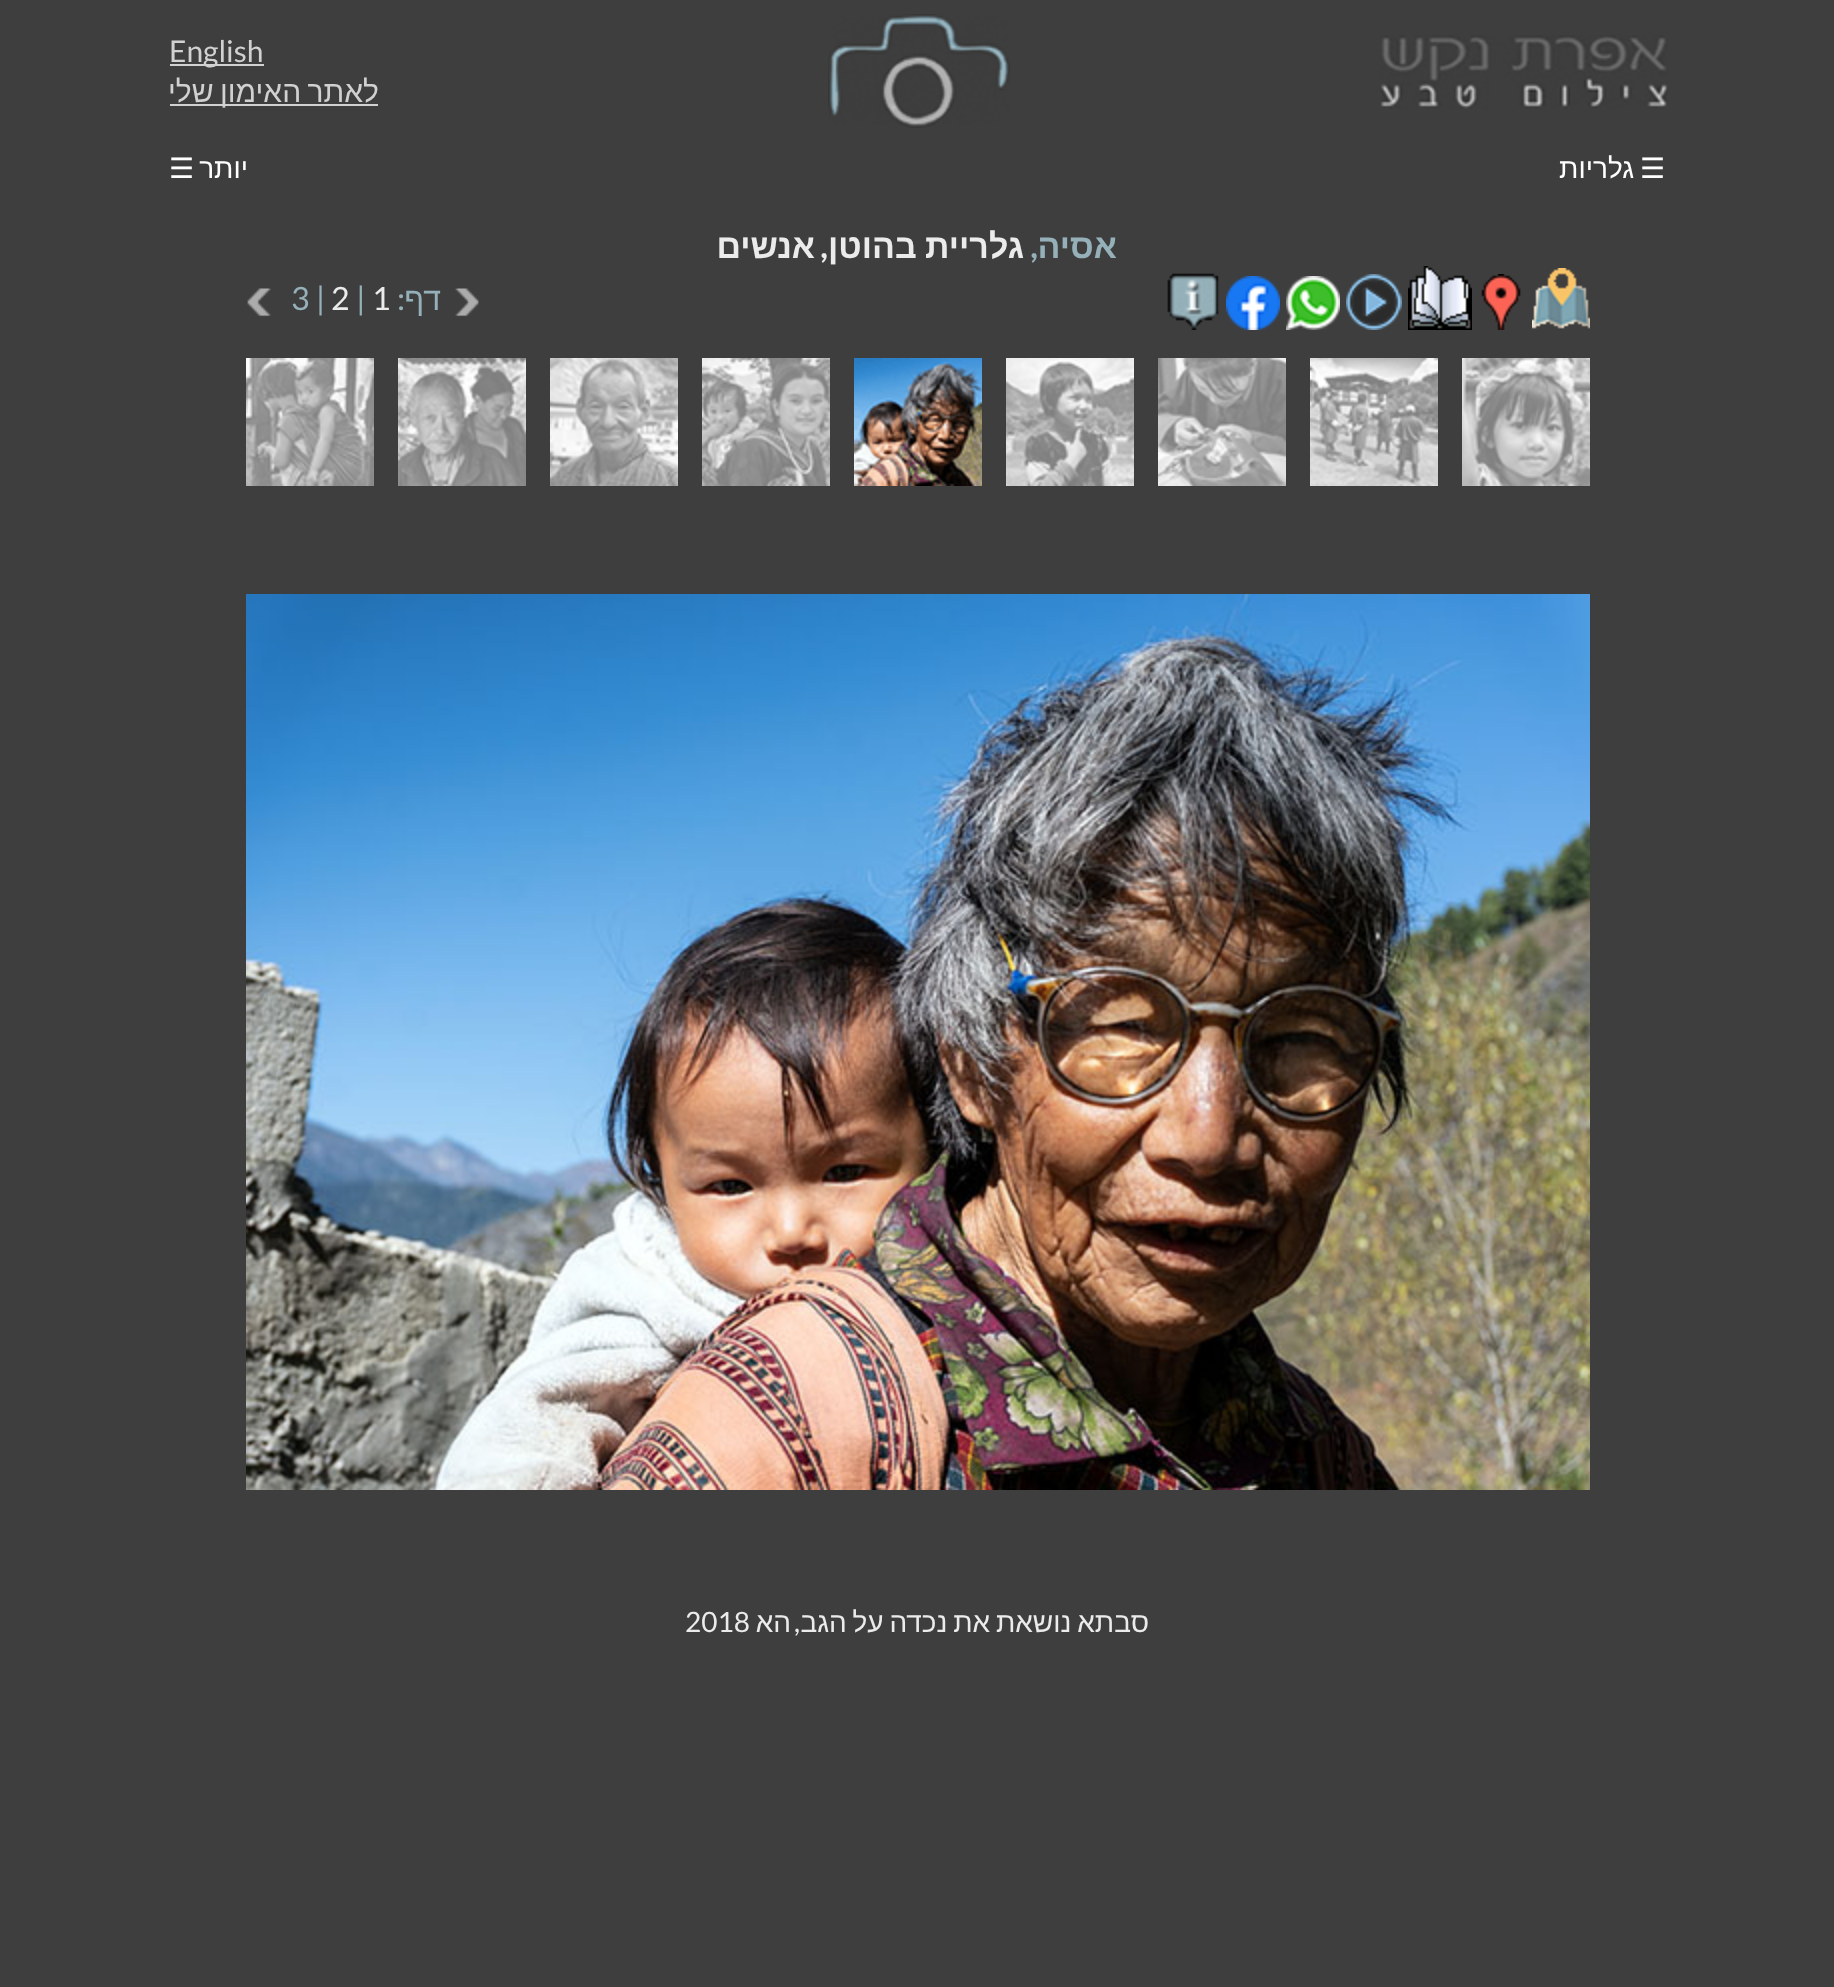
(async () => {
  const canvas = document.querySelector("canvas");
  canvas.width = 1834;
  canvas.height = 1987;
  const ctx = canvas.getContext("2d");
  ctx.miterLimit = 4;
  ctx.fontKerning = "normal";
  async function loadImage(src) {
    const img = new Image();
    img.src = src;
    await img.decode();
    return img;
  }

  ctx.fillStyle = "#3e3e3e";
  ctx.fillRect(0, 0, 1834, 1987);
  ctx.drawImage(await loadImage("img/1.png"), 828, 14, 182, 114);
  ctx.drawImage(await loadImage("img/2.png"), 1380, 35, 288, 74);
  ctx.fillStyle = "#d1d1d1";
  ctx.fillRect(170, 64, 94, 2);
  ctx.fillRect(170, 104, 208, 2);
  ctx.drawImage(await loadImage("img/3.png"), 1532, 268, 58, 61);
  ctx.drawImage(await loadImage("img/4.png"), 1481, 274, 40, 56);
  ctx.drawImage(await loadImage("img/5.png"), 1408, 266, 64, 64);
  ctx.drawImage(await loadImage("img/6.png"), 1346, 274, 56, 56);
  ctx.drawImage(await loadImage("img/7.png"), 1286, 276, 54, 54);
  ctx.drawImage(await loadImage("img/8.png"), 1226, 276, 54, 54);
  ctx.drawImage(await loadImage("img/9.png"), 1167, 273, 52, 57);
  ctx.drawImage(await loadImage("img/10.png"), 455, 288, 24, 29);
  ctx.drawImage(await loadImage("img/11.png"), 247, 288, 24, 29);
  ctx.drawImage(await loadImage("img/12.png"), 1462, 358, 128, 128);
  ctx.drawImage(await loadImage("img/13.png"), 1310, 358, 128, 128);
  ctx.drawImage(await loadImage("img/14.png"), 1158, 358, 128, 128);
  ctx.drawImage(await loadImage("img/15.png"), 1006, 358, 128, 128);
  ctx.drawImage(await loadImage("img/16.png"), 854, 358, 128, 128);
  ctx.drawImage(await loadImage("img/17.png"), 702, 358, 128, 128);
  ctx.drawImage(await loadImage("img/18.png"), 550, 358, 128, 128);
  ctx.drawImage(await loadImage("img/19.png"), 398, 358, 128, 128);
  ctx.drawImage(await loadImage("img/20.png"), 246, 358, 128, 128);
  ctx.drawImage(await loadImage("img/21.png"), 246, 594, 1344, 896);
  ctx.font = "30px Lato";
  ctx.fillText("English", 169, 62);
  ctx.wordSpacing = "-2px";
  ctx.direction = "rtl";
  ctx.font = "30px Liberation Sans";
  ctx.fillText("לאתר האימון שלי", 379, 102);
  ctx.wordSpacing = "0px";
  ctx.font = "28px DejaVu Sans";
  ctx.fillStyle = "#ffffff";
  ctx.fillText("☰", 1665, 178);
  ctx.font = "28px Liberation Sans";
  ctx.fillText("גלריות", 1634, 178);
  ctx.fillText("יותר", 248, 178);
  ctx.font = "28px DejaVu Sans";
  ctx.fillText("☰", 194, 178);
  ctx.font = "bold 34px Liberation Sans";
  ctx.fillStyle = "#95b0b9";
  ctx.fillText("אסיה", 1117, 258);
  ctx.font = "bold 34px Lato";
  ctx.fillText(",", 1038, 258);
  ctx.wordSpacing = "-1px";
  ctx.font = "bold 34px Liberation Sans";
  ctx.fillStyle = "#ebebeb";
  ctx.fillText("גלריית בהוטן", 1024, 258);
  ctx.wordSpacing = "0px";
  ctx.font = "bold 34px Lato";
  ctx.fillText(",", 828, 258);
  ctx.font = "bold 34px Liberation Sans";
  ctx.fillText("אנשים", 815, 258);
  ctx.font = "32px Liberation Sans";
  ctx.fillStyle = "#95b0b9";
  ctx.fillText("דף", 441, 310);
  ctx.font = "32px Lato";
  ctx.fillText(":", 405, 310);
  ctx.direction = "ltr";
  ctx.fillStyle = "#ebebeb";
  ctx.fillText("1", 372, 310);
  ctx.fillStyle = "#95b0b9";
  ctx.fillText("|", 356, 310);
  ctx.fillStyle = "#ebebeb";
  ctx.fillText("2", 331, 310);
  ctx.fillStyle = "#95b0b9";
  ctx.fillText("3 |", 291, 310);
  ctx.wordSpacing = "-2px";
  ctx.direction = "rtl";
  ctx.font = "28px Liberation Sans";
  ctx.fillStyle = "#ebebeb";
  ctx.fillText("סבתא נושאת את נכדה על הגב", 1149, 1632);
  ctx.wordSpacing = "0px";
  ctx.font = "28px Lato";
  ctx.fillText(",", 800, 1632);
  ctx.font = "28px Liberation Sans";
  ctx.fillText("הא", 791, 1632);
  ctx.direction = "ltr";
  ctx.font = "28px Lato";
  ctx.fillText("2018", 685, 1632);
})();
